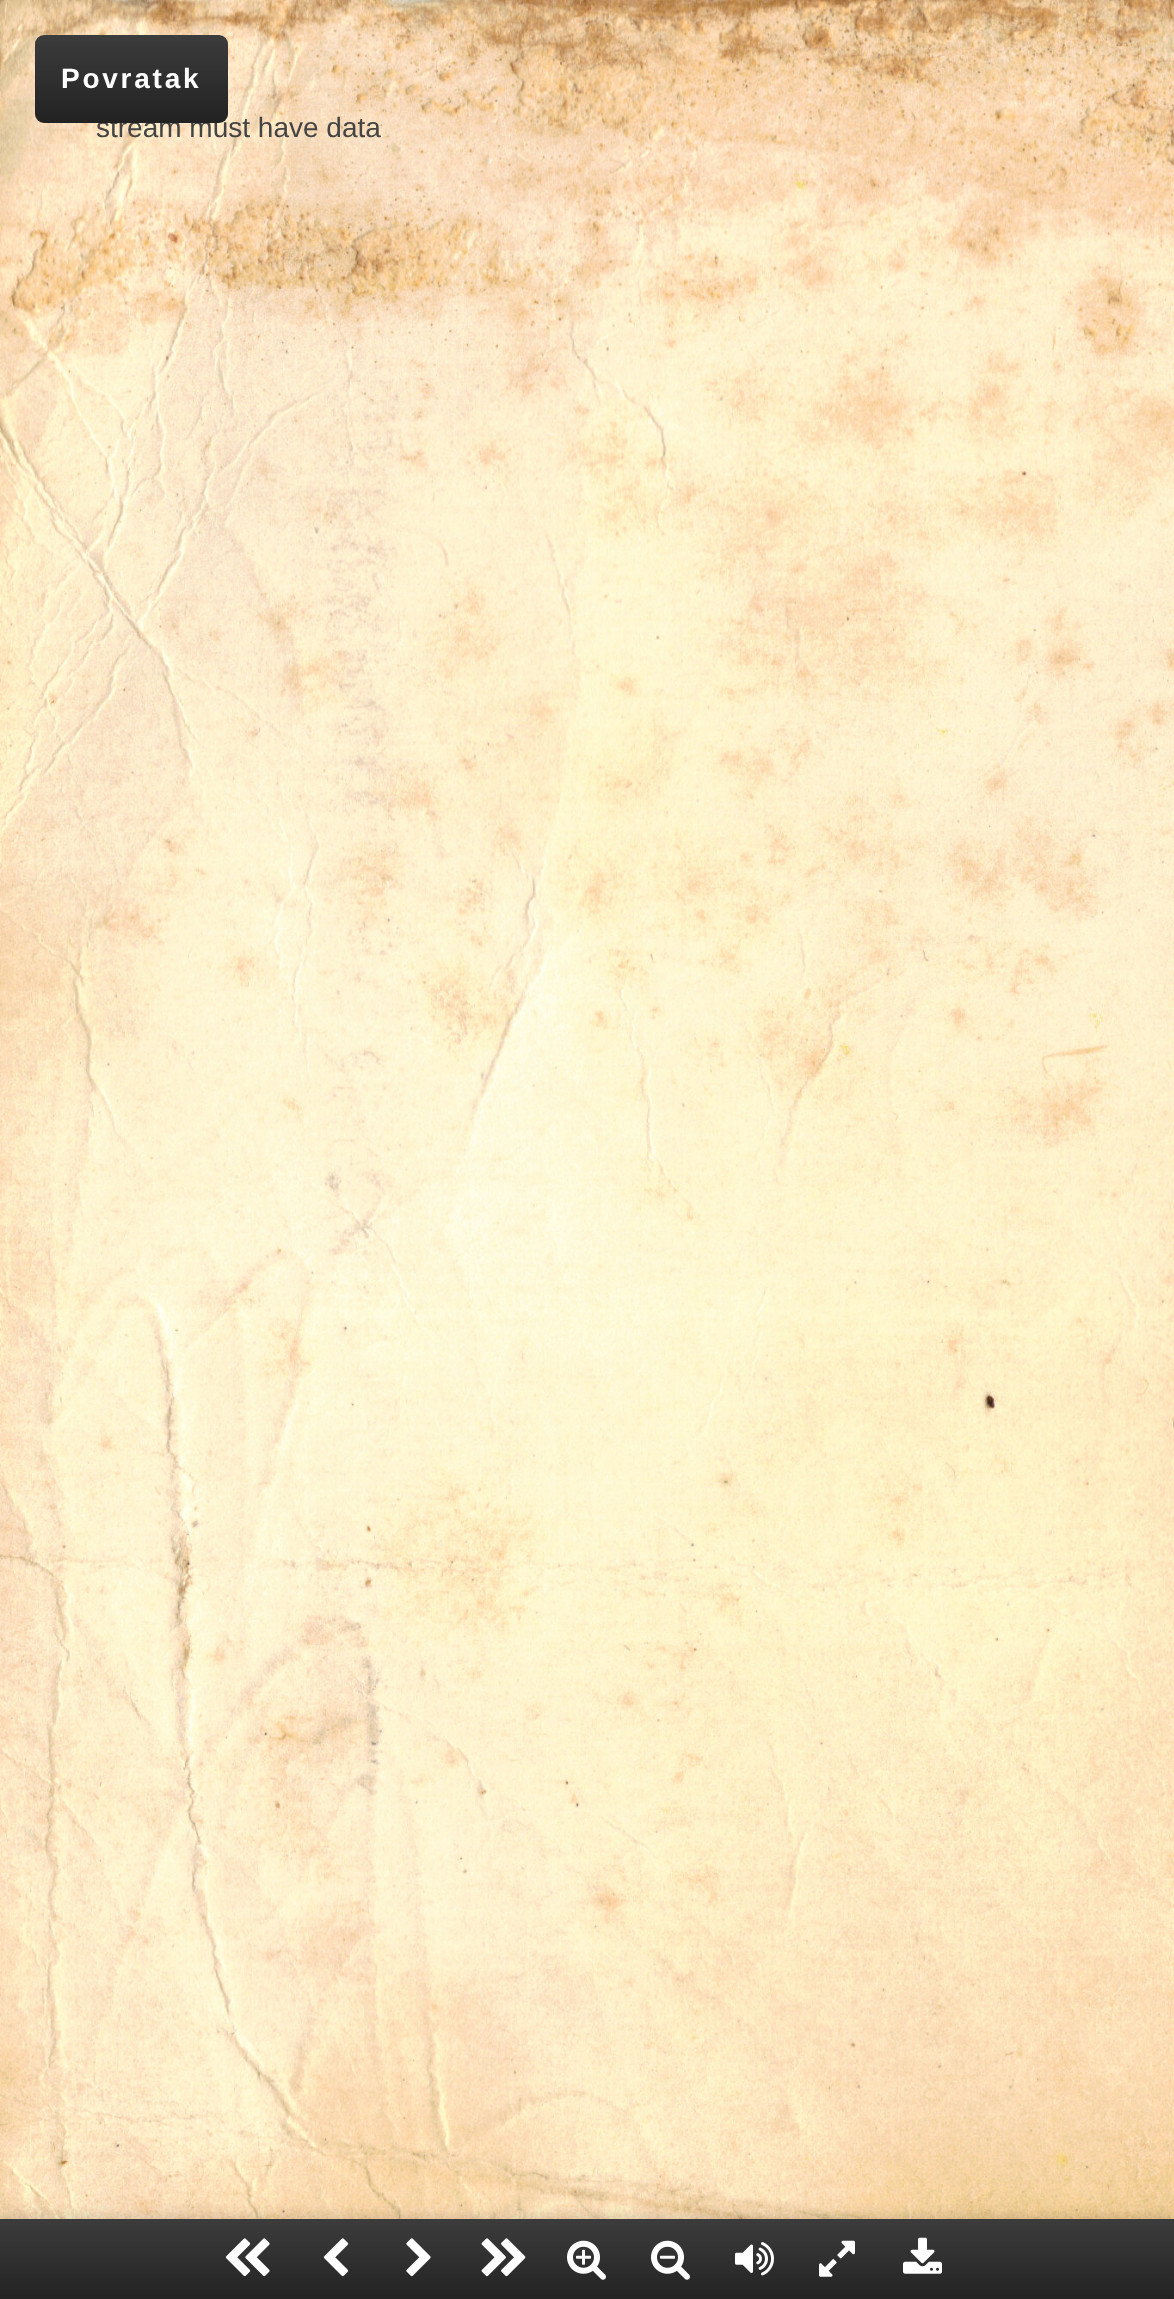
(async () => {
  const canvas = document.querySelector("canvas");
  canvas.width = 1174;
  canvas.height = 2299;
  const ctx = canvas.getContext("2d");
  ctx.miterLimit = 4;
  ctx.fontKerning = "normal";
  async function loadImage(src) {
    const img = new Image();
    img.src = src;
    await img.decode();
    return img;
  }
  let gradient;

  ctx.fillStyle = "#ffffff";
  ctx.fillRect(0, 0, 1174, 2299);
  ctx.drawImage(await loadImage("img/1.png"), 0, 0, 1174, 2219);
  ctx.fillStyle = "rgba(0, 0, 0, 0.2)";
  ctx.filter = "blur(9px)";
  ctx.beginPath();
  ctx.rect(0, 2219, 1174, 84);
  ctx.fill();
  ctx.filter = "none";
  gradient = ctx.createLinearGradient(587, 2219, 587, 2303);
  gradient.addColorStop(0, "#3c3c3c");
  gradient.addColorStop(1, "#222222");
  ctx.fillStyle = gradient;
  ctx.fillRect(0, 2219, 1174, 80);
  ctx.drawImage(await loadImage("img/2.png"), 225, 2238, 45, 39);
  ctx.drawImage(await loadImage("img/3.png"), 323, 2238, 26, 39);
  ctx.drawImage(await loadImage("img/4.png"), 406, 2238, 25, 39);
  ctx.drawImage(await loadImage("img/5.png"), 481, 2238, 45, 39);
  ctx.drawImage(await loadImage("img/6.png"), 567, 2240, 39, 40);
  ctx.drawImage(await loadImage("img/7.png"), 651, 2240, 39, 40);
  ctx.drawImage(await loadImage("img/8.png"), 735, 2242, 39, 34);
  ctx.drawImage(await loadImage("img/9.png"), 819, 2240, 36, 37);
  ctx.drawImage(await loadImage("img/10.png"), 903, 2237, 39, 37);
  ctx.font = "28px Liberation Sans";
  ctx.fillStyle = "#444444";
  ctx.fillText("stream must have data", 96, 137);
  gradient = ctx.createLinearGradient(131, 35, 131, 123);
  gradient.addColorStop(0, "#3c3c3c");
  gradient.addColorStop(1, "#222222");
  ctx.fillStyle = gradient;
  ctx.beginPath();
  ctx.roundRect(35, 35, 193, 88, 9);
  ctx.fill();
  ctx.letterSpacing = "2.75px";
  ctx.font = "bold 28px Liberation Sans";
  ctx.fillStyle = "#ffffff";
  ctx.fillText("Povratak", 61, 88);
})();
